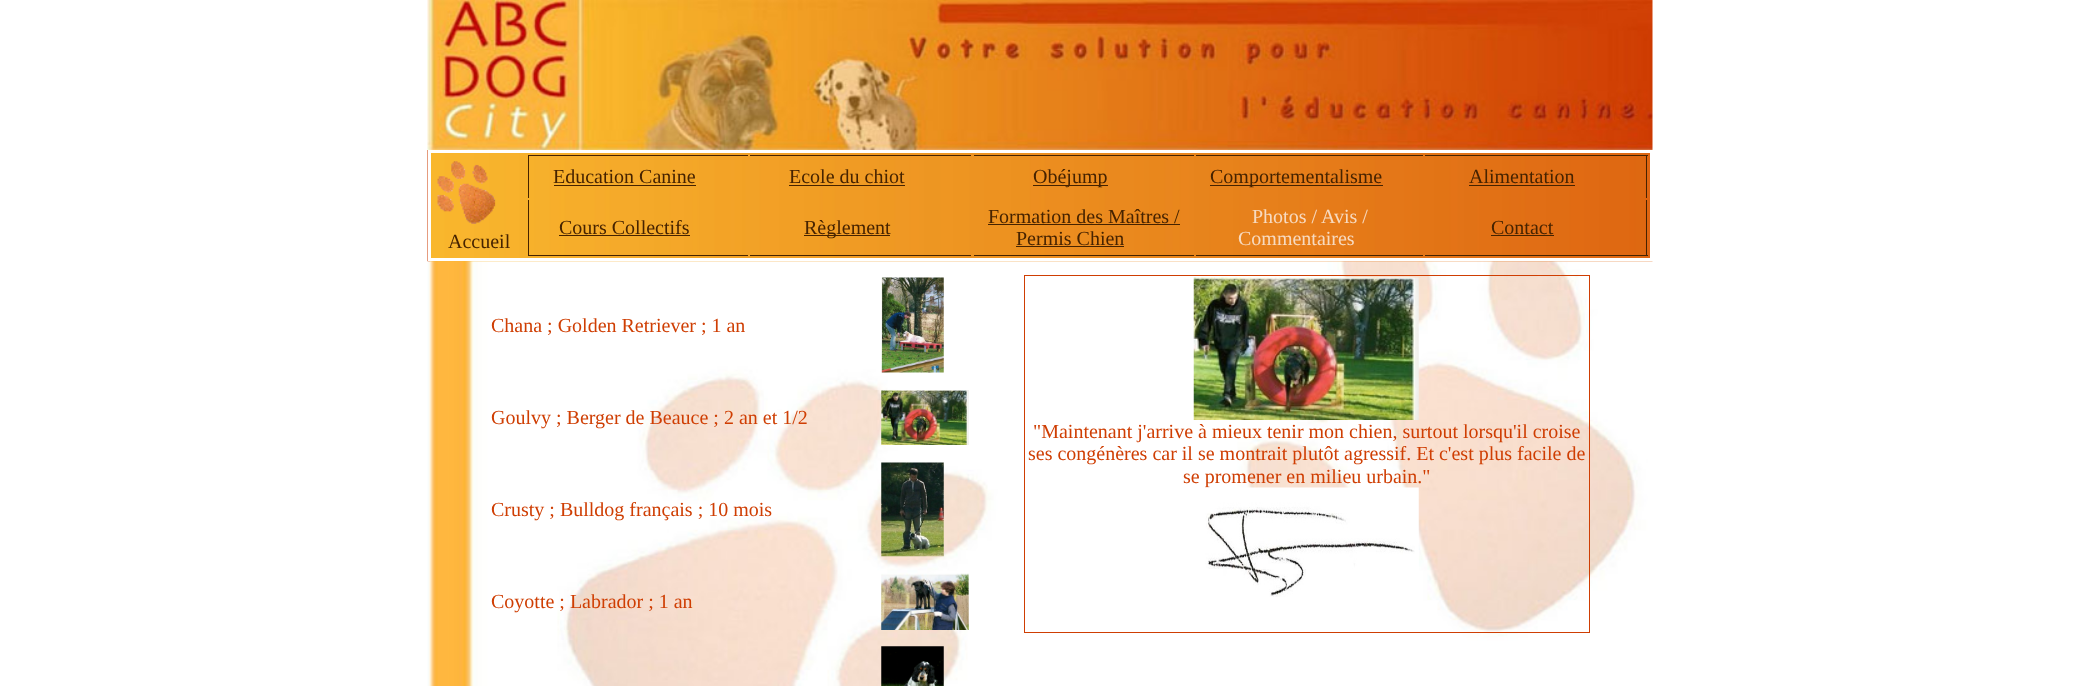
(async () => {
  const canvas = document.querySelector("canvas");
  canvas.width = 2079;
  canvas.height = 686;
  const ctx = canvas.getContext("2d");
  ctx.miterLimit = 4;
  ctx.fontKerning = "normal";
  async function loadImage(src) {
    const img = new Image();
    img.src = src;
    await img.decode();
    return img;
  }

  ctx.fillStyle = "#ffffff";
  ctx.fillRect(0, 0, 2079, 686);
  ctx.drawImage(await loadImage("img/1.png"), 427, 0, 1226, 686);
  ctx.drawImage(await loadImage("img/2.png"), 427, 150, 1226, 112);
  ctx.strokeStyle = "#ffffff";
  ctx.lineWidth = 3;
  ctx.strokeRect(429.5, 151.5, 1222, 108);
  for (const [x, y, w, h, color] of [
    [528, 155, 220, 1, "#462300"],
    [528, 155, 1, 43, "#462300"],
    [554, 185, 142, 1, "#462300"],
    [750, 155, 221, 1, "#462300"],
    [789, 185, 116, 1, "#462300"],
    [974, 155, 220, 1, "#462300"],
    [1033, 185, 75, 1, "#462300"],
    [1196, 155, 227, 1, "#462300"],
    [1210, 185, 173, 1, "#462300"],
    [1425, 155, 223, 1, "#462300"],
    [1646, 155, 1, 43, "#462300"],
    [1469, 185, 106, 1, "#462300"],
  ]) {
    ctx.fillStyle = color;
    ctx.fillRect(x, y, w, h);
  }
  ctx.drawImage(await loadImage("img/3.png"), 437, 161, 59, 63);
  for (const [x, y, w, h, color] of [
    [528, 255, 220, 1, "#462300"],
    [528, 200, 1, 56, "#462300"],
    [559, 235, 131, 1, "#462300"],
    [750, 255, 221, 1, "#462300"],
    [804, 235, 86, 1, "#462300"],
    [974, 255, 220, 1, "#462300"],
    [988, 224, 192, 1, "#462300"],
    [1016, 246, 108, 1, "#462300"],
    [1196, 255, 227, 1, "#462300"],
    [1646, 200, 1, 56, "#462300"],
    [1425, 255, 223, 1, "#462300"],
    [1491, 235, 63, 1, "#462300"],
  ]) {
    ctx.fillStyle = color;
    ctx.fillRect(x, y, w, h);
  }
  ctx.drawImage(await loadImage("img/4.png"), 881, 277, 63, 96);
  ctx.strokeStyle = "#cf3e03";
  ctx.lineWidth = 1;
  ctx.strokeRect(1024.5, 275.5, 565, 357);
  ctx.drawImage(await loadImage("img/5.png"), 1193, 277, 226, 143);
  ctx.drawImage(await loadImage("img/7.png"), 881, 390, 88, 55);
  ctx.drawImage(await loadImage("img/8.png"), 881, 462, 63, 95);
  ctx.drawImage(await loadImage("img/9.png"), 881, 573, 88, 57);
  ctx.drawImage(await loadImage("img/10.png"), 881, 646, 63, 40);
  ctx.font = "20px Liberation Serif";
  for (const [text, x, y] of [
    ["Education Canine", 553, 183],
    ["Ecole du chiot", 789, 183],
    ["Obéjump", 1033, 183],
    ["Comportementalisme", 1210, 183],
    ["Alimentation", 1469, 183],
    ["Accueil", 448, 248],
    ["Cours Collectifs", 559, 234],
    ["Règlement", 804, 234],
    ["Formation des Maîtres /", 988, 223],
    ["Permis Chien", 1016, 245],
  ]) {
    ctx.fillText(text, x, y);
  }
  ctx.fillStyle = "#f7dac0";
  ctx.fillText("Photos / Avis /", 1252, 223);
  ctx.fillText("Commentaires", 1238, 245);
  ctx.fillStyle = "#462300";
  ctx.fillText("Contact", 1491, 234);
  ctx.fillStyle = "#cf3e03";
  for (const [text, x, y] of [
    ["Chana ; Golden Retriever ; 1 an", 491, 332],
    ["\"Maintenant j'arrive à mieux tenir mon chien, surtout lorsqu'il croise", 1033, 438],
    ["ses congénères car il se montrait plutôt agressif. Et c'est plus facile de", 1028, 460],
    ["se promener en milieu urbain.\"", 1183, 483],
  ]) {
    ctx.fillText(text, x, y);
  }
  ctx.drawImage(await loadImage("img/6.png"), 1205, 487, 214, 110);
  for (const [text, x, y] of [
    ["Goulvy ; Berger de Beauce ; 2 an et 1/2", 491, 424],
    ["Crusty ; Bulldog français ; 10 mois", 491, 516],
    ["Coyotte ; Labrador ; 1 an", 491, 608],
  ]) {
    ctx.fillText(text, x, y);
  }
})();
